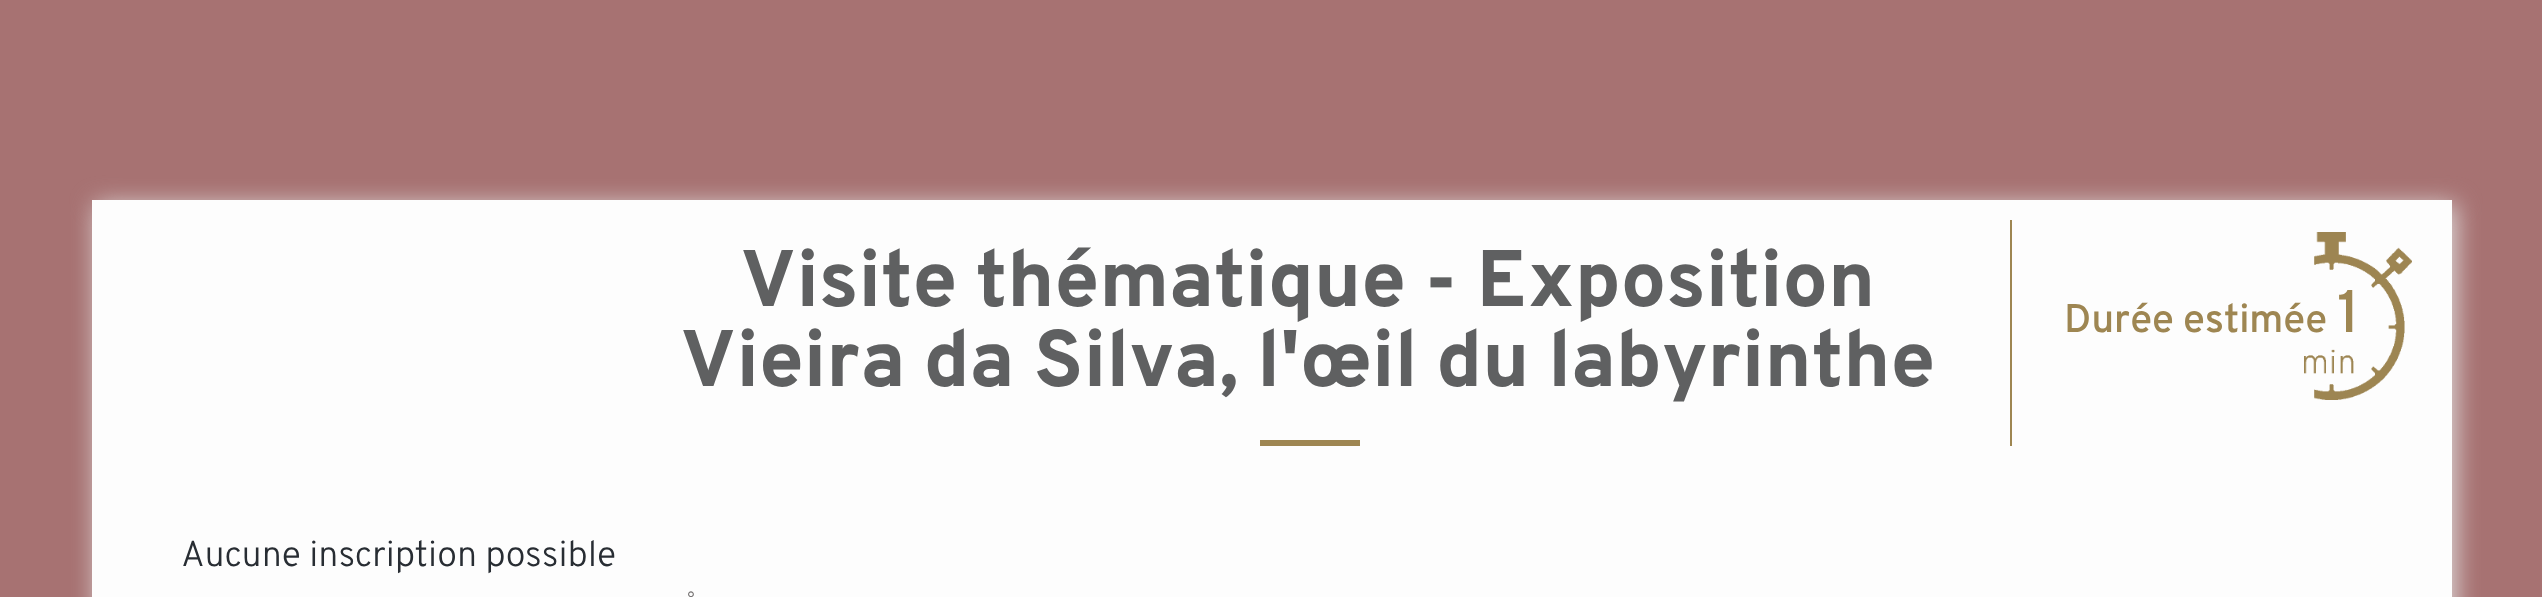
(async () => {
  const canvas = document.querySelector("canvas");
  canvas.width = 2542;
  canvas.height = 597;
  const ctx = canvas.getContext("2d");
  ctx.miterLimit = 4;
  ctx.fontKerning = "normal";
  async function loadImage(src) {
    const img = new Image();
    img.src = src;
    await img.decode();
    return img;
  }

  ctx.fillStyle = "#a77272";
  ctx.fillRect(0, 0, 2542, 597);
  ctx.fillStyle = "#ded9d9";
  ctx.filter = "blur(12px)";
  ctx.beginPath();
  ctx.rect(96, 204, 2360, 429);
  ctx.fill();
  ctx.filter = "none";
  for (const [x, y, w, h, color] of [
    [92, 200, 2360, 397, "#fdfdfd"],
    [2010, 220, 2, 226, "#9e8652"],
    [1260, 440, 100, 6, "#9e8652"],
  ]) {
    ctx.fillStyle = color;
    ctx.fillRect(x, y, w, h);
  }
  ctx.drawImage(await loadImage("img/1.png"), 2304, 232, 108, 168);
  ctx.font = "bold 80px Overpass";
  ctx.fillStyle = "#5f6061";
  ctx.fillText("Visite thématique - Exposition", 740, 306);
  ctx.fillText("Vieira da Silva, l'œil du labyrinthe", 680, 386);
  ctx.font = "40px Overpass";
  ctx.fillStyle = "#9e8652";
  ctx.fillText("Durée estimée", 2064, 332);
  ctx.font = "60px Overpass";
  ctx.fillText("1", 2337, 332);
  ctx.font = "300 36px Overpass";
  ctx.fillStyle = "#282d33";
  ctx.fillText("Aucune inscription possible", 181, 566);
  ctx.font = "italic 21px Liberation Sans";
  ctx.fillStyle = "#777474";
  ctx.fillText("°", 686, 606);
})();
